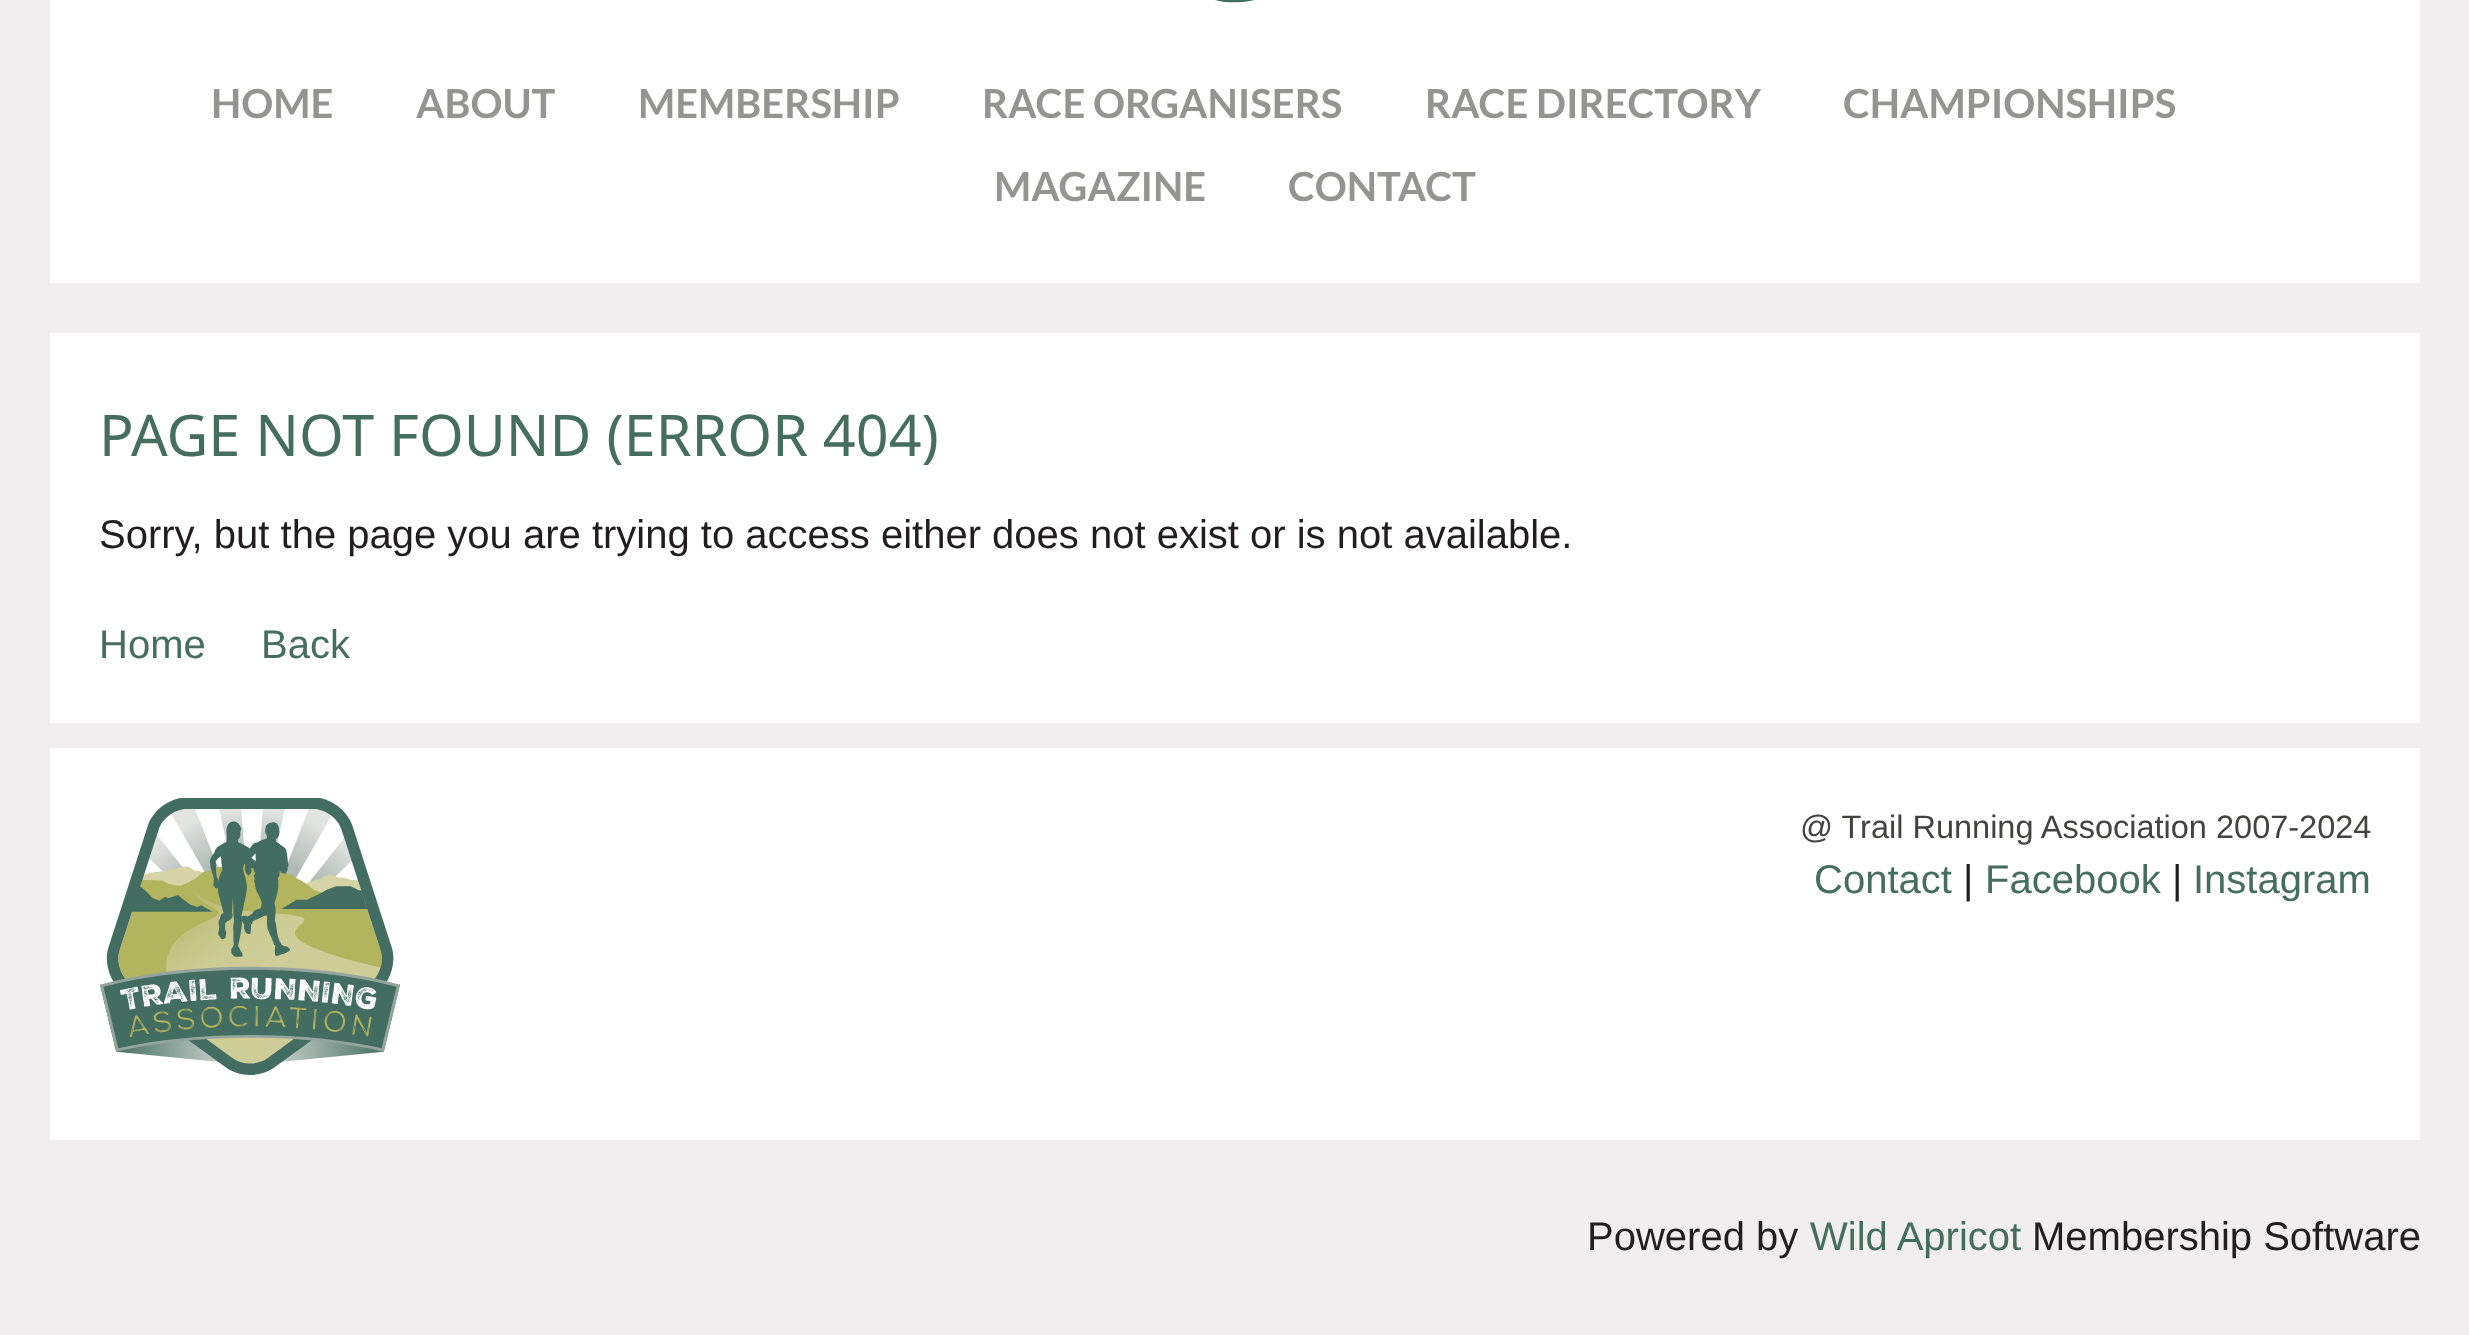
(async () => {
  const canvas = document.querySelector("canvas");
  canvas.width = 2469;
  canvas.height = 1335;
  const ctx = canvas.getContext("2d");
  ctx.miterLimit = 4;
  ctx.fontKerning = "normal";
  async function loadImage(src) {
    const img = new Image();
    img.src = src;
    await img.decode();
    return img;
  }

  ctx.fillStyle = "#f0eeee";
  ctx.fillRect(0, 0, 2469, 1335);
  ctx.fillStyle = "#ffffff";
  ctx.fillRect(50, 0, 2370, 283);
  ctx.drawImage(await loadImage("img/1.png"), 1215, 0, 39, 3);
  ctx.fillRect(50, 333, 2370, 390);
  ctx.fillRect(50, 748, 2370, 392);
  ctx.drawImage(await loadImage("img/2.png"), 100, 798, 300, 277);
  ctx.font = "bold 40px Lato";
  ctx.fillStyle = "#949493";
  for (const [text, x, y] of [
    ["HOME", 211, 118],
    ["ABOUT", 416, 118],
    ["MEMBERSHIP", 638, 118],
    ["RACE ORGANISERS", 982, 118],
    ["RACE DIRECTORY", 1425, 118],
    ["CHAMPIONSHIPS", 1843, 118],
    ["MAGAZINE", 994, 201],
    ["CONTACT", 1288, 201],
  ]) {
    ctx.fillText(text, x, y);
  }
  ctx.font = "57.5px Noto Sans";
  ctx.fillStyle = "#456e5e";
  ctx.fillText("PAGE NOT FOUND (ERROR 404)", 99, 456);
  ctx.font = "40px Liberation Sans";
  ctx.fillStyle = "#221e1f";
  ctx.fillText("Sorry, but the page you are trying to access either does not exist or is not available.", 99, 548);
  ctx.fillStyle = "#456e5e";
  ctx.fillText("Home", 99, 658);
  ctx.fillText("Back", 261, 658);
  ctx.font = "32.5px Liberation Sans";
  ctx.fillStyle = "#434342";
  ctx.fillText("@ Trail Running Association 2007-2024", 1800, 838);
  ctx.font = "40px Liberation Sans";
  ctx.fillStyle = "#456e5e";
  ctx.fillText("Contact", 1814, 893);
  ctx.fillStyle = "#221e1f";
  ctx.fillText("|", 1963, 893);
  ctx.fillStyle = "#456e5e";
  ctx.fillText("Facebook", 1985, 893);
  ctx.fillStyle = "#221e1f";
  ctx.fillText("|", 2172, 893);
  ctx.fillStyle = "#456e5e";
  ctx.fillText("Instagram", 2193, 893);
  ctx.fillStyle = "#221e1f";
  ctx.fillText("Powered by", 1587, 1250);
  ctx.fillStyle = "#456e5e";
  ctx.fillText("Wild Apricot", 1810, 1250);
  ctx.fillStyle = "#221e1f";
  ctx.fillText("Membership Software", 2032, 1250);
})();
